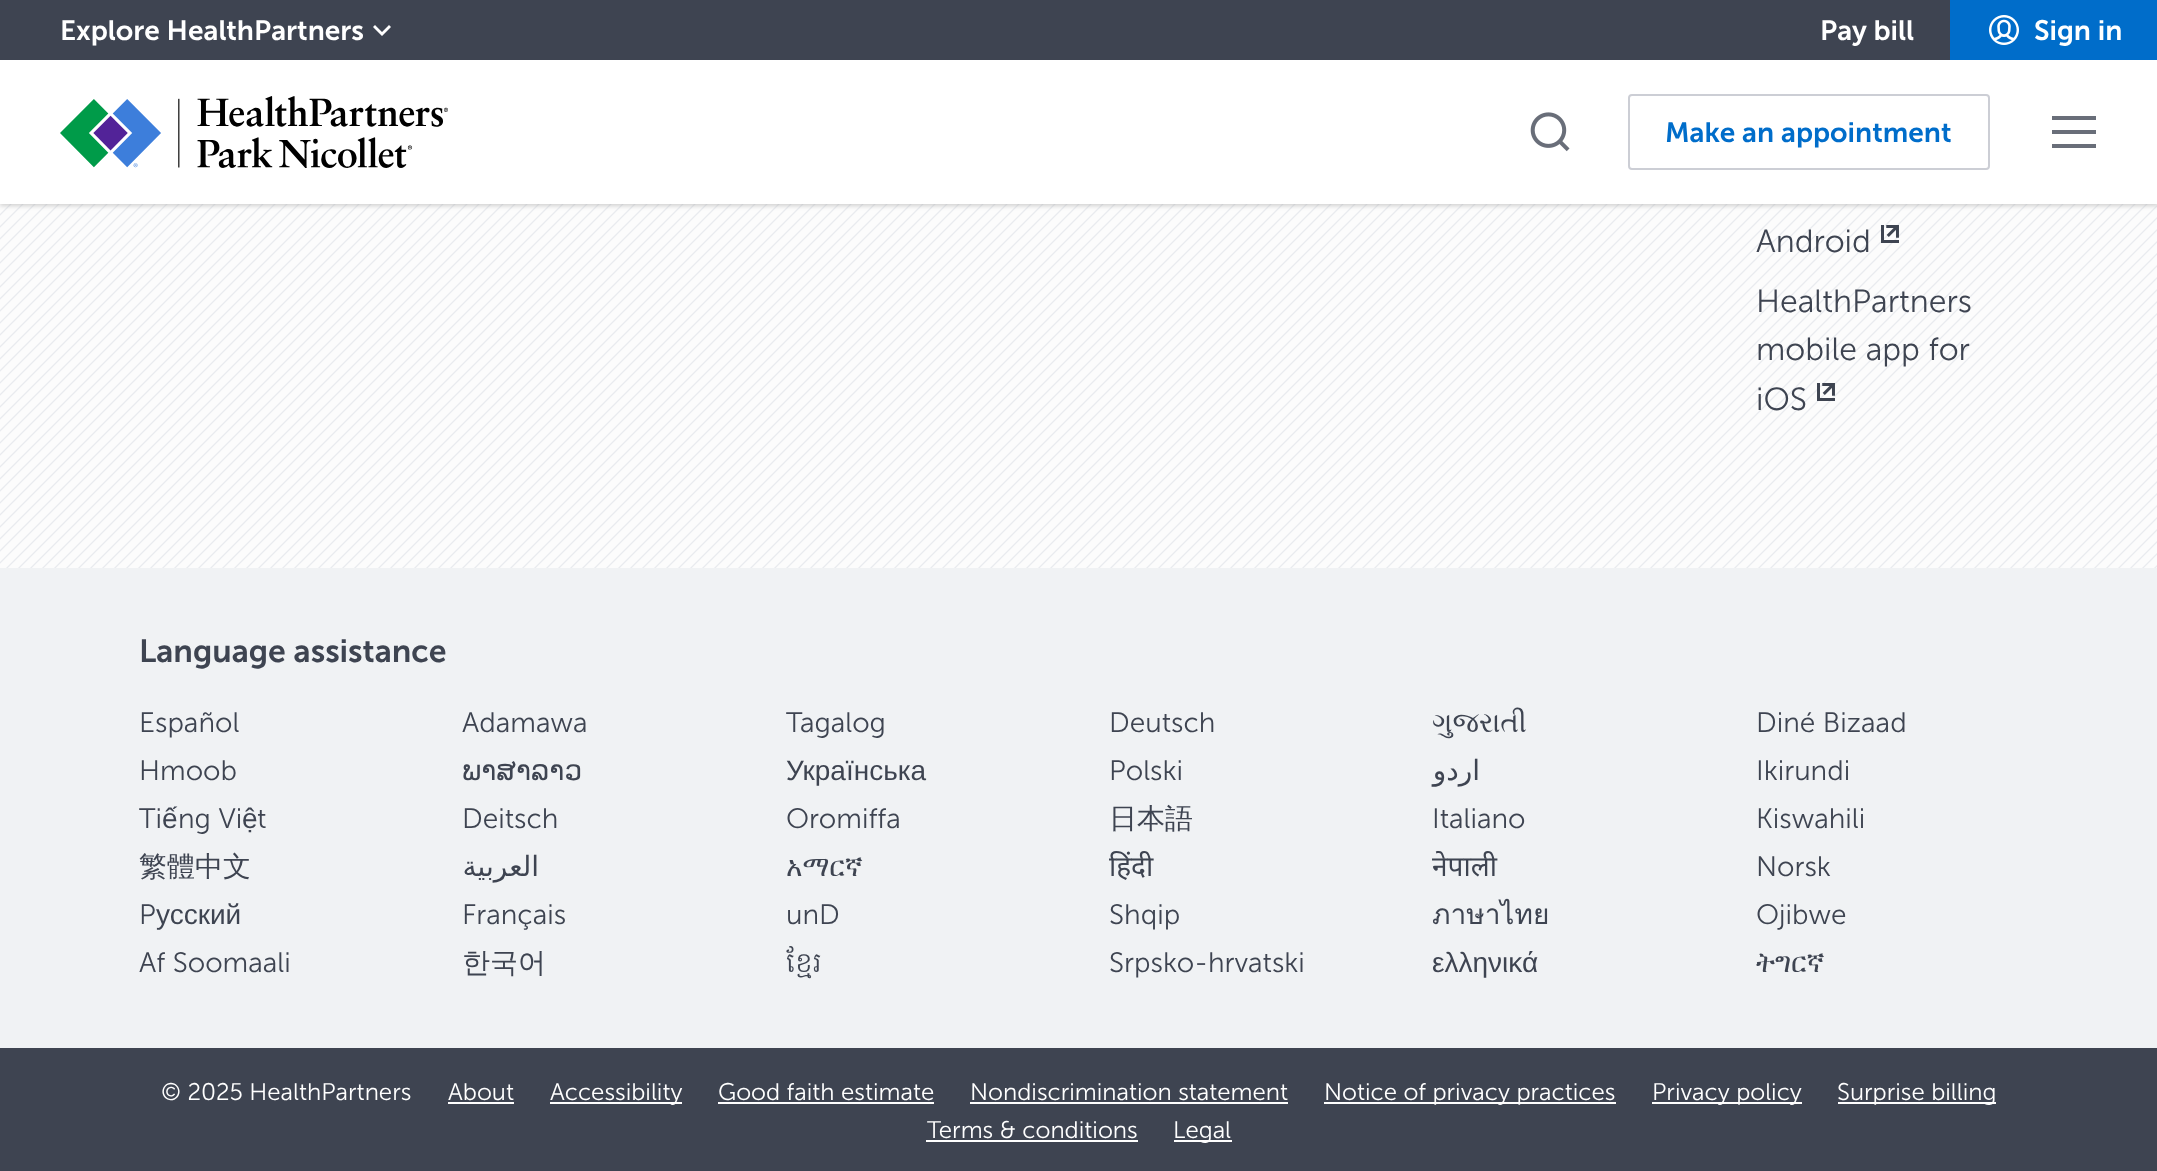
(async () => {
  const canvas = document.querySelector("canvas");
  canvas.width = 2157;
  canvas.height = 1171;
  const ctx = canvas.getContext("2d");
  ctx.miterLimit = 4;
  ctx.fontKerning = "normal";
  async function loadImage(src) {
    const img = new Image();
    img.src = src;
    await img.decode();
    return img;
  }
  let path;

  ctx.fillStyle = "#ffffff";
  ctx.fillRect(0, 0, 2157, 1171);
  ctx.drawImage(await loadImage("img/4.png"), 0, 204, 2157, 364);
  ctx.fillStyle = "rgba(168, 168, 168, 0.5)";
  ctx.filter = "blur(2px)";
  ctx.beginPath();
  ctx.rect(0, 62, 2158, 144);
  ctx.fill();
  ctx.filter = "none";
  ctx.fillStyle = "#3e4451";
  ctx.fillRect(0, 0, 1950, 60);
  ctx.fillStyle = "#ffffff";
  path = new Path2D("M375 25L382 32L389 25L391 27L382 36L373 27Z");
  ctx.fill(path);
  ctx.fillStyle = "#006dca";
  ctx.fillRect(1950, 0, 207, 60);
  ctx.drawImage(await loadImage("img/1.png"), 1989, 15, 30, 30);
  ctx.fillStyle = "#ffffff";
  ctx.fillRect(0, 60, 2157, 144);
  ctx.drawImage(await loadImage("img/2.png"), 60, 96, 388, 72);
  ctx.drawImage(await loadImage("img/3.png"), 1530, 112, 40, 40);
  ctx.beginPath();
  ctx.roundRect(1629, 95, 360, 74, 3);
  ctx.strokeStyle = "#ccced5";
  ctx.lineWidth = 2;
  ctx.stroke();
  ctx.fillStyle = "#696e79";
  path = new Path2D("M2052 148H2096V144H2052ZM2052 134H2096V130H2052ZM2052 116V120H2096V116Z");
  ctx.fill(path);
  ctx.drawImage(await loadImage("img/5.png"), 1881, 225, 18, 18);
  ctx.drawImage(await loadImage("img/6.png"), 1817, 383, 18, 18);
  for (const [x, y, w, h, color] of [
    [0, 568, 2157, 480, "#f0f2f4"],
    [0, 1048, 2157, 123, "#3e4451"],
    [448, 1102, 66, 2, "#ffffff"],
    [550, 1102, 132, 2, "#ffffff"],
    [718, 1102, 216, 2, "#ffffff"],
    [970, 1102, 318, 2, "#ffffff"],
    [1324, 1102, 292, 2, "#ffffff"],
    [1652, 1102, 150, 2, "#ffffff"],
    [1838, 1102, 158, 2, "#ffffff"],
    [926, 1140, 212, 2, "#ffffff"],
    [1174, 1140, 58, 2, "#ffffff"],
  ]) {
    ctx.fillStyle = color;
    ctx.fillRect(x, y, w, h);
  }
  ctx.font = "600 28px Museo Sans";
  for (const [text, x, y] of [
    ["Explore HealthPartners", 60, 40],
    ["Pay bill", 1820, 40],
    ["Sign in", 2034, 40],
  ]) {
    ctx.fillText(text, x, y);
  }
  ctx.fillStyle = "#006dca";
  ctx.fillText("Make an appointment", 1665, 142);
  ctx.font = "300 32px Museo Sans";
  ctx.fillStyle = "#3e4451";
  for (const [text, x, y] of [
    ["Android", 1756, 252],
    ["HealthPartners", 1756, 312],
    ["mobile app for", 1756, 360],
    ["iOS", 1756, 410],
  ]) {
    ctx.fillText(text, x, y);
  }
  ctx.font = "600 32px Museo Sans";
  ctx.fillText("Language assistance", 139, 662);
  ctx.font = "300 28px Museo Sans";
  for (const [text, x, y] of [
    ["Español", 139, 732],
    ["Hmoob", 139, 780],
    ["Ti", 139, 828],
  ]) {
    ctx.fillText(text, x, y);
  }
  ctx.font = "28px Liberation Sans";
  ctx.fillText("ế", 162, 828);
  ctx.font = "300 28px Museo Sans";
  ctx.fillText("ng Vi", 178, 828);
  ctx.font = "28px Liberation Sans";
  ctx.fillText("ệ", 242, 828);
  ctx.font = "300 28px Museo Sans";
  ctx.fillText("t", 257, 828);
  ctx.font = "500 28px WenQuanYi Zen Hei";
  ctx.fillText("繁體中文", 139, 876);
  ctx.font = "300 28px Museo Sans";
  ctx.fillText("P", 139, 924);
  ctx.font = "28px Liberation Sans";
  ctx.fillText("усский", 156, 924);
  ctx.font = "300 28px Museo Sans";
  ctx.fillText("Af Soomaali", 139, 972);
  ctx.fillText("Adamawa", 462, 732);
  ctx.font = "28px DejaVu Sans";
  ctx.fillText("ພາສາລາວ", 462, 780);
  ctx.font = "300 28px Museo Sans";
  ctx.fillText("Deitsch", 462, 828);
  ctx.direction = "rtl";
  ctx.font = "28px DejaVu Sans";
  ctx.fillText("العربية", 539, 876);
  ctx.direction = "ltr";
  ctx.font = "300 28px Museo Sans";
  ctx.fillText("Français", 462, 924);
  ctx.font = "500 28px WenQuanYi Zen Hei";
  ctx.fillText("한국어", 462, 972);
  ctx.font = "300 28px Museo Sans";
  ctx.fillText("Tagalog", 786, 732);
  ctx.font = "28px Liberation Sans";
  ctx.fillText("Українська", 786, 780);
  ctx.font = "300 28px Museo Sans";
  ctx.fillText("Oromiffa", 786, 828);
  ctx.font = "28px FreeSerif";
  ctx.fillText("አማርኛ", 786, 876);
  ctx.font = "300 28px Museo Sans";
  ctx.fillText("unD", 786, 924);
  ctx.font = "300 28px Hanuman";
  ctx.fillText("ខ្មែរ", 786, 972);
  ctx.font = "300 28px Museo Sans";
  ctx.fillText("Deutsch", 1109, 732);
  ctx.fillText("Polski", 1109, 780);
  ctx.font = "500 28px WenQuanYi Zen Hei";
  ctx.fillText("日本語", 1109, 828);
  ctx.font = "28px Noto Sans";
  ctx.fillText("हिंदी", 1109, 876);
  ctx.font = "300 28px Museo Sans";
  ctx.fillText("Shqip", 1109, 924);
  ctx.fillText("Srpsko-hrvatski", 1109, 972);
  ctx.font = "28px FreeSerif";
  ctx.fillText("ગુજરાતી", 1432, 732);
  ctx.direction = "rtl";
  ctx.font = "28px DejaVu Sans";
  ctx.fillText("اردو", 1480, 780);
  ctx.direction = "ltr";
  ctx.font = "300 28px Museo Sans";
  ctx.fillText("Italiano", 1432, 828);
  ctx.font = "28px Noto Sans";
  ctx.fillText("नेपाली", 1432, 876);
  ctx.font = "28px Loma";
  ctx.fillText("ภาษาไทย", 1432, 924);
  ctx.font = "28px Liberation Sans";
  ctx.fillText("ελληνικά", 1432, 972);
  ctx.font = "300 28px Museo Sans";
  for (const [text, x, y] of [
    ["Diné Bizaad", 1756, 732],
    ["Ikirundi", 1756, 780],
    ["Kiswahili", 1756, 828],
    ["Norsk", 1756, 876],
    ["Ojibwe", 1756, 924],
  ]) {
    ctx.fillText(text, x, y);
  }
  ctx.font = "28px FreeSerif";
  ctx.fillText("ትግርኛ", 1756, 972);
  ctx.font = "300 24px Museo Sans";
  ctx.fillStyle = "#ffffff";
  for (const [text, x, y] of [
    ["© 2025 HealthPartners", 161, 1100],
    ["About", 448, 1100],
    ["Accessibility", 550, 1100],
    ["Good faith estimate", 718, 1100],
    ["Nondiscrimination statement", 970, 1100],
    ["Notice of privacy practices", 1324, 1100],
    ["Privacy policy", 1652, 1100],
    ["Surprise billing", 1837, 1100],
    ["Terms & conditions", 927, 1138],
    ["Legal", 1173, 1138],
  ]) {
    ctx.fillText(text, x, y);
  }
})();
